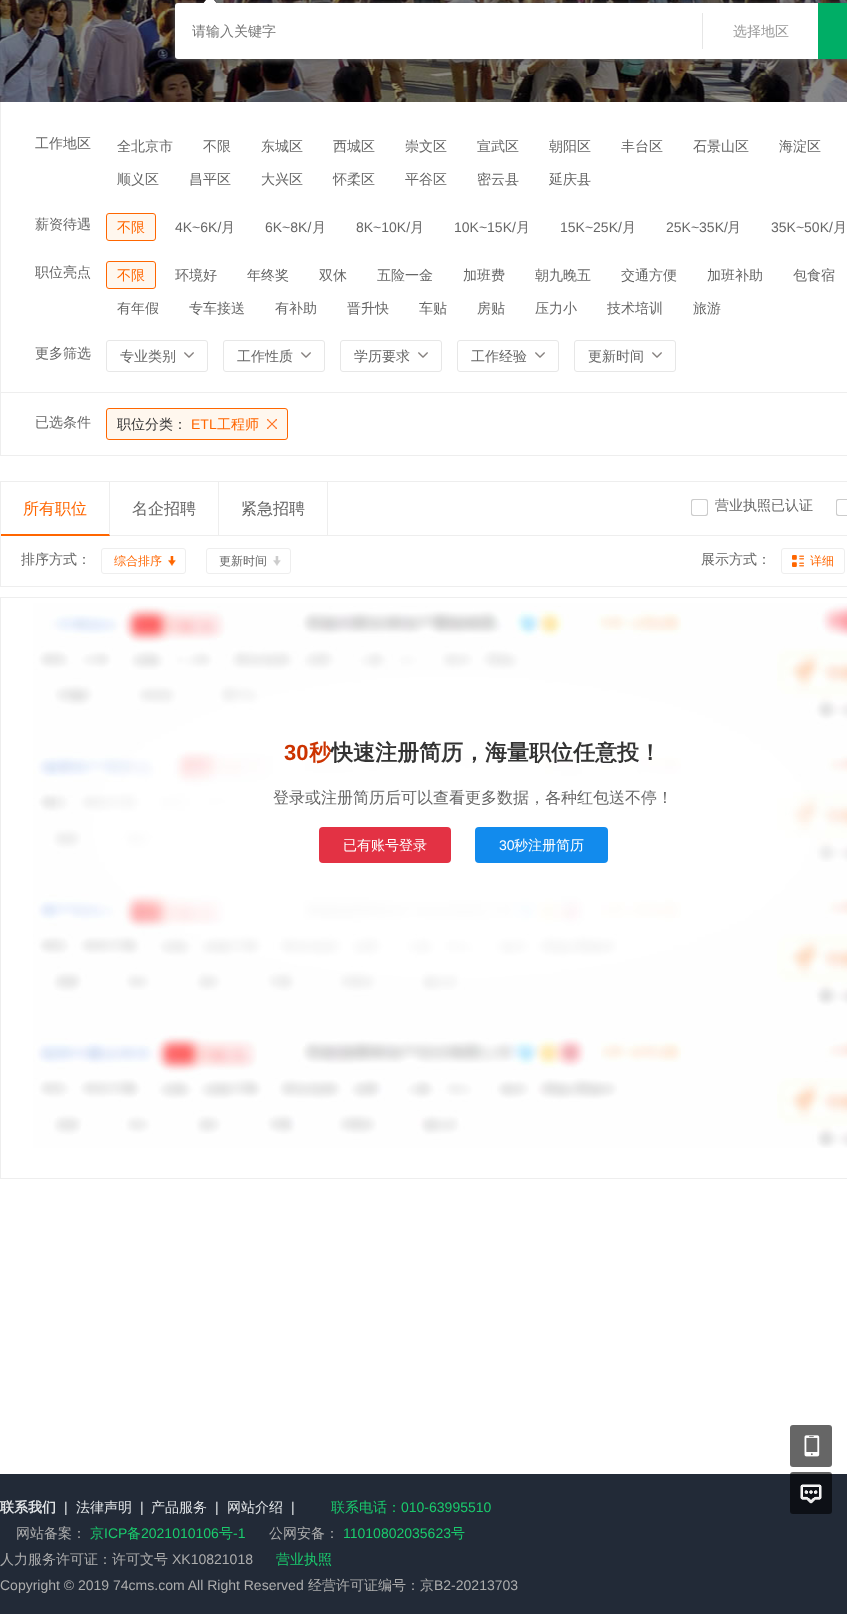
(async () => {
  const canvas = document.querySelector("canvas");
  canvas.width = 847;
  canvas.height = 1614;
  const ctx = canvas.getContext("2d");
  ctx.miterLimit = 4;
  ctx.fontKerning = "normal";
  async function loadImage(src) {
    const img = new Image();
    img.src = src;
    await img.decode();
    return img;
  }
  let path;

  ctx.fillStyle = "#ffffff";
  ctx.fillRect(0, 0, 847, 1614);
  ctx.drawImage(await loadImage("img/1.png"), 0, 0, 847, 102);
  ctx.fillStyle = "rgba(93, 91, 91, 0.83)";
  ctx.filter = "blur(2.5px)";
  ctx.beginPath();
  ctx.roundRect(174, 3, 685, 58, 4);
  ctx.fill();
  ctx.filter = "none";
  ctx.drawImage(await loadImage("img/2.png"), 203, 0, 14, 3);
  ctx.fillStyle = "#ffffff";
  ctx.beginPath();
  ctx.roundRect(175, 3, 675, 56, 3);
  ctx.fill();
  for (const [x, y, w, h, color] of [
    [702, 13, 1, 36, "#e6e6e6"],
    [818, 3, 29, 56, "#00ae66"],
    [0, 455, 847, 1, "#eeeeee"],
    [0, 102, 1, 354, "#eeeeee"],
  ]) {
    ctx.fillStyle = color;
    ctx.fillRect(x, y, w, h);
  }
  ctx.fillStyle = "#fff7ee";
  ctx.beginPath();
  ctx.roundRect(106.5, 213.5, 49, 27, 2.5);
  ctx.fill();
  ctx.strokeStyle = "#ff6600";
  ctx.stroke();
  ctx.beginPath();
  ctx.roundRect(106.5, 261.5, 49, 27, 2.5);
  ctx.fill();
  ctx.stroke();
  ctx.drawImage(await loadImage("img/3.png"), 184, 352, 10, 6);
  ctx.beginPath();
  ctx.roundRect(106.5, 340.5, 101, 31, 2.5);
  ctx.strokeStyle = "#e7e7e7";
  ctx.stroke();
  ctx.drawImage(await loadImage("img/3.png"), 301, 352, 10, 6);
  ctx.beginPath();
  ctx.roundRect(223.5, 340.5, 101, 31, 2.5);
  ctx.stroke();
  ctx.drawImage(await loadImage("img/3.png"), 418, 352, 10, 6);
  ctx.beginPath();
  ctx.roundRect(340.5, 340.5, 101, 31, 2.5);
  ctx.stroke();
  ctx.drawImage(await loadImage("img/3.png"), 535, 352, 10, 6);
  ctx.beginPath();
  ctx.roundRect(457.5, 340.5, 101, 31, 2.5);
  ctx.stroke();
  ctx.drawImage(await loadImage("img/3.png"), 652, 352, 10, 6);
  ctx.beginPath();
  ctx.roundRect(574.5, 340.5, 101, 31, 2.5);
  ctx.stroke();
  ctx.fillStyle = "#eeeeee";
  ctx.fillRect(1, 392, 846, 1);
  ctx.fillStyle = "#fff7ee";
  ctx.beginPath();
  ctx.roundRect(106, 408, 182, 32, 3);
  ctx.fill();
  ctx.drawImage(await loadImage("img/4.png"), 267, 419, 10, 10);
  ctx.beginPath();
  ctx.roundRect(106.5, 408.5, 181, 31, 2.5);
  ctx.strokeStyle = "#ff6600";
  ctx.stroke();
  ctx.strokeStyle = "#eeeeee";
  ctx.strokeRect(0.5, 481.5, 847, 105);
  ctx.fillStyle = "#eeeeee";
  ctx.fillRect(109, 535, 738, 1);
  path = new Path2D("M110 482V536L109 534V482Z");
  ctx.fill(path);
  ctx.fillStyle = "#ff6600";
  path = new Path2D("M110 536H1V534H109Z");
  ctx.fill(path);
  ctx.fillStyle = "#eeeeee";
  ctx.fillRect(218, 482, 1, 53);
  ctx.fillRect(327, 482, 1, 53);
  ctx.drawImage(await loadImage("img/5.png"), 691, 499, 17, 17);
  ctx.drawImage(await loadImage("img/6.png"), 836, 499, 11, 17);
  ctx.drawImage(await loadImage("img/7.png"), 168, 556, 8, 10);
  ctx.beginPath();
  ctx.roundRect(101.5, 548.5, 84, 25, 2.5);
  ctx.stroke();
  ctx.drawImage(await loadImage("img/8.png"), 273, 556, 8, 10);
  ctx.beginPath();
  ctx.roundRect(206.5, 548.5, 84, 25, 2.5);
  ctx.stroke();
  ctx.drawImage(await loadImage("img/9.png"), 792, 555, 12, 12);
  ctx.beginPath();
  ctx.roundRect(781.5, 548.5, 63, 25, 2.5);
  ctx.stroke();
  ctx.strokeRect(0.5, 597.5, 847, 581);
  ctx.drawImage(await loadImage("img/10.png"), 33, 603, 814, 545);
  ctx.fillStyle = "#e33244";
  ctx.beginPath();
  ctx.roundRect(319, 827, 132, 36, 4);
  ctx.fill();
  ctx.fillStyle = "#128bed";
  ctx.beginPath();
  ctx.roundRect(475, 827, 133, 36, 4);
  ctx.fill();
  ctx.drawImage(await loadImage("img/11.png"), 790, 1425, 42, 42);
  ctx.fillStyle = "#222a37";
  ctx.fillRect(0, 1474, 847, 140);
  ctx.drawImage(await loadImage("img/12.png"), 790, 1472, 42, 42);
  ctx.font = "500 14px WenQuanYi Zen Hei";
  ctx.fillStyle = "#757575";
  ctx.fillText("请输入关键字", 192, 36);
  ctx.fillStyle = "#999999";
  ctx.fillText("选择地区", 733, 36);
  ctx.fillStyle = "#666666";
  for (const [text, x, y] of [
    ["工作地区", 35, 148],
    ["全北京市", 117, 151],
    ["不限", 203, 151],
    ["东城区", 261, 151],
    ["西城区", 333, 151],
    ["崇文区", 405, 151],
    ["宣武区", 477, 151],
    ["朝阳区", 549, 151],
    ["丰台区", 621, 151],
    ["石景山区", 693, 151],
    ["海淀区", 779, 151],
    ["顺义区", 117, 184],
    ["昌平区", 189, 184],
    ["大兴区", 261, 184],
    ["怀柔区", 333, 184],
    ["平谷区", 405, 184],
    ["密云县", 477, 184],
    ["延庆县", 549, 184],
    ["薪资待遇", 35, 229],
  ]) {
    ctx.fillText(text, x, y);
  }
  ctx.fillStyle = "#ff6600";
  ctx.fillText("不限", 117, 232);
  ctx.font = "14px Liberation Sans";
  ctx.fillStyle = "#666666";
  ctx.fillText("4K~6K/", 175, 232);
  ctx.font = "500 14px WenQuanYi Zen Hei";
  ctx.fillText("月", 221, 232);
  ctx.font = "14px Liberation Sans";
  ctx.fillText("6K~8K/", 265, 232);
  ctx.font = "500 14px WenQuanYi Zen Hei";
  ctx.fillText("月", 312, 232);
  ctx.font = "14px Liberation Sans";
  ctx.fillText("8K~10K/", 356, 232);
  ctx.font = "500 14px WenQuanYi Zen Hei";
  ctx.fillText("月", 410, 232);
  ctx.font = "14px Liberation Sans";
  ctx.fillText("10K~15K/", 454, 232);
  ctx.font = "500 14px WenQuanYi Zen Hei";
  ctx.fillText("月", 516, 232);
  ctx.font = "14px Liberation Sans";
  ctx.fillText("15K~25K/", 560, 232);
  ctx.font = "500 14px WenQuanYi Zen Hei";
  ctx.fillText("月", 622, 232);
  ctx.font = "14px Liberation Sans";
  ctx.fillText("25K~35K/", 666, 232);
  ctx.font = "500 14px WenQuanYi Zen Hei";
  ctx.fillText("月", 727, 232);
  ctx.font = "14px Liberation Sans";
  ctx.fillText("35K~50K/", 771, 232);
  ctx.font = "500 14px WenQuanYi Zen Hei";
  ctx.fillText("月", 833, 232);
  ctx.fillText("职位亮点", 35, 277);
  ctx.fillStyle = "#ff6600";
  ctx.fillText("不限", 117, 280);
  ctx.fillStyle = "#666666";
  for (const [text, x, y] of [
    ["环境好", 175, 280],
    ["年终奖", 247, 280],
    ["双休", 319, 280],
    ["五险一金", 377, 280],
    ["加班费", 463, 280],
    ["朝九晚五", 535, 280],
    ["交通方便", 621, 280],
    ["加班补助", 707, 280],
    ["包食宿", 793, 280],
    ["有年假", 117, 313],
    ["专车接送", 189, 313],
    ["有补助", 275, 313],
    ["晋升快", 347, 313],
    ["车贴", 419, 313],
    ["房贴", 477, 313],
    ["压力小", 535, 313],
    ["技术培训", 607, 313],
    ["旅游", 693, 313],
    ["更多筛选", 35, 358],
    ["专业类别", 120, 361],
    ["工作性质", 237, 361],
    ["学历要求", 354, 361],
    ["工作经验", 471, 361],
    ["更新时间", 588, 361],
    ["已选条件", 35, 427],
  ]) {
    ctx.fillText(text, x, y);
  }
  ctx.fillStyle = "#333333";
  ctx.fillText("职位分类：", 117, 429);
  ctx.font = "14px Liberation Sans";
  ctx.fillStyle = "#ff6600";
  ctx.fillText("ETL", 191, 429);
  ctx.font = "500 14px WenQuanYi Zen Hei";
  ctx.fillText("工程师", 217, 429);
  ctx.font = "500 16px WenQuanYi Zen Hei";
  ctx.fillText("所有职位", 23, 514);
  ctx.fillStyle = "#666666";
  ctx.fillText("名企招聘", 132, 514);
  ctx.fillText("紧急招聘", 241, 514);
  ctx.font = "500 14px WenQuanYi Zen Hei";
  ctx.fillText("营业执照已认证", 715, 510);
  ctx.fillText("排序方式：", 21, 564);
  ctx.font = "500 12px WenQuanYi Zen Hei";
  ctx.fillStyle = "#ff6600";
  ctx.fillText("综合排序", 114, 565);
  ctx.fillStyle = "#666666";
  ctx.fillText("更新时间", 219, 565);
  ctx.font = "500 14px WenQuanYi Zen Hei";
  ctx.fillText("展示方式：", 701, 564);
  ctx.font = "500 12px WenQuanYi Zen Hei";
  ctx.fillStyle = "#ff6600";
  ctx.fillText("详细", 810, 565);
  ctx.font = "bold 22px Liberation Sans";
  ctx.fillStyle = "#cc3300";
  ctx.fillText("30", 284, 760);
  ctx.font = "bold 22px WenQuanYi Zen Hei";
  ctx.fillText("秒", 309, 760);
  ctx.fillStyle = "#333333";
  ctx.fillText("快速注册简历，海量职位任意投！", 331, 760);
  ctx.font = "500 16px WenQuanYi Zen Hei";
  ctx.fillStyle = "#666666";
  ctx.fillText("登录或注册简历后可以查看更多数据，各种红包送不停！", 273, 803);
  ctx.font = "500 14px WenQuanYi Zen Hei";
  ctx.fillStyle = "#ffffff";
  ctx.fillText("已有账号登录", 343, 850);
  ctx.font = "14px Liberation Sans";
  ctx.fillText("30", 499, 850);
  ctx.font = "500 14px WenQuanYi Zen Hei";
  ctx.fillText("秒注册简历", 514, 850);
  ctx.font = "bold 14px WenQuanYi Zen Hei";
  ctx.fillStyle = "#e1e4e6";
  ctx.fillText("联系我们", 0, 1512);
  ctx.font = "14px Liberation Sans";
  ctx.fillText("|", 64, 1512);
  ctx.font = "500 14px WenQuanYi Zen Hei";
  ctx.fillText("法律声明", 76, 1512);
  ctx.font = "14px Liberation Sans";
  ctx.fillText("|", 140, 1512);
  ctx.font = "500 14px WenQuanYi Zen Hei";
  ctx.fillText("产品服务", 151, 1512);
  ctx.font = "14px Liberation Sans";
  ctx.fillText("|", 215, 1512);
  ctx.font = "500 14px WenQuanYi Zen Hei";
  ctx.fillText("网站介绍", 227, 1512);
  ctx.font = "14px Liberation Sans";
  ctx.fillText("|", 291, 1512);
  ctx.font = "500 14px WenQuanYi Zen Hei";
  ctx.fillStyle = "#1acb6d";
  ctx.fillText("联系电话：", 331, 1512);
  ctx.font = "14px Liberation Sans";
  ctx.fillText("010-63995510", 401, 1512);
  ctx.font = "500 14px WenQuanYi Zen Hei";
  ctx.fillStyle = "#adadad";
  ctx.fillText("网站备案：", 16, 1538);
  ctx.fillStyle = "#1acb6d";
  ctx.fillText("京", 90, 1538);
  ctx.font = "14px Liberation Sans";
  ctx.fillText("ICP", 104, 1538);
  ctx.font = "500 14px WenQuanYi Zen Hei";
  ctx.fillText("备", 127, 1538);
  ctx.font = "14px Liberation Sans";
  ctx.fillText("2021010106", 141, 1538);
  ctx.font = "500 14px WenQuanYi Zen Hei";
  ctx.fillText("号", 219, 1538);
  ctx.font = "14px Liberation Sans";
  ctx.fillText("-1", 233, 1538);
  ctx.font = "500 14px WenQuanYi Zen Hei";
  ctx.fillStyle = "#adadad";
  ctx.fillText("公网安备：", 269, 1538);
  ctx.font = "14px Liberation Sans";
  ctx.fillStyle = "#1acb6d";
  ctx.fillText("11010802035623", 343, 1538);
  ctx.font = "500 14px WenQuanYi Zen Hei";
  ctx.fillText("号", 451, 1538);
  ctx.fillStyle = "#adadad";
  ctx.fillText("人力服务许可证：许可文号", 0, 1564);
  ctx.font = "14px Liberation Sans";
  ctx.fillText("XK10821018", 172, 1564);
  ctx.font = "500 14px WenQuanYi Zen Hei";
  ctx.fillStyle = "#1acb6d";
  ctx.fillText("营业执照", 276, 1564);
  ctx.font = "14px Liberation Sans";
  ctx.fillStyle = "#adadad";
  ctx.fillText("Copyright © 2019 74cms.com All Right Reserved", 0, 1590);
  ctx.font = "500 14px WenQuanYi Zen Hei";
  ctx.fillText("经营许可证编号：京", 308, 1590);
  ctx.font = "14px Liberation Sans";
  ctx.fillText("B2-20213703", 434, 1590);
})();
